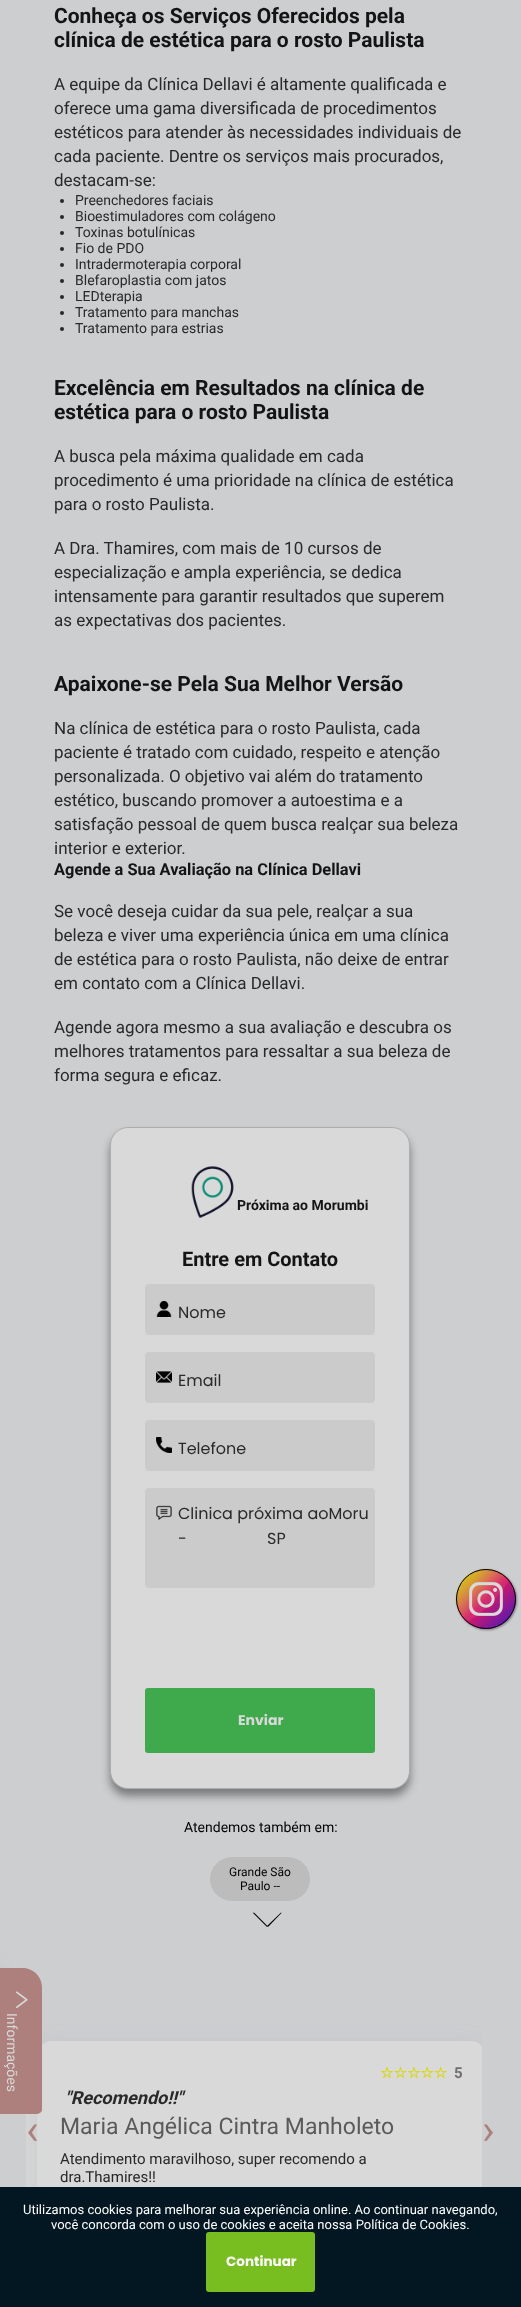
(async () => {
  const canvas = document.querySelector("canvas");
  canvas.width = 521;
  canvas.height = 2307;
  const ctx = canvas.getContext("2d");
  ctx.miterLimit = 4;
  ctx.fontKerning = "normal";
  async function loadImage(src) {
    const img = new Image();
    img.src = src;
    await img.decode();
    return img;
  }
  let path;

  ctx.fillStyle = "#ccced0";
  ctx.fillRect(0, 0, 521, 2307);
  ctx.fillStyle = "#292929";
  ctx.beginPath();
  ctx.arc(62, 201, 2, 0, Math.PI * 2);
  ctx.fill();
  ctx.beginPath();
  ctx.arc(62, 217, 2, 0, Math.PI * 2);
  ctx.fill();
  ctx.beginPath();
  ctx.arc(62, 233, 2, 0, Math.PI * 2);
  ctx.fill();
  ctx.beginPath();
  ctx.arc(62, 249, 2, 0, Math.PI * 2);
  ctx.fill();
  ctx.beginPath();
  ctx.arc(62, 265, 2, 0, Math.PI * 2);
  ctx.fill();
  ctx.beginPath();
  ctx.arc(62, 281, 2, 0, Math.PI * 2);
  ctx.fill();
  ctx.beginPath();
  ctx.arc(62, 297, 2, 0, Math.PI * 2);
  ctx.fill();
  ctx.beginPath();
  ctx.arc(62, 313, 2, 0, Math.PI * 2);
  ctx.fill();
  ctx.beginPath();
  ctx.arc(62, 329, 2, 0, Math.PI * 2);
  ctx.fill();
  ctx.fillStyle = "rgba(0, 0, 0, 0.4)";
  ctx.filter = "blur(4.5px)";
  ctx.beginPath();
  ctx.roundRect(110, 1134, 300, 662, 18);
  ctx.fill();
  ctx.filter = "none";
  ctx.fillStyle = "#d9d9d9";
  ctx.beginPath();
  ctx.roundRect(110.5, 1127.5, 299, 661, 17.5);
  ctx.fill();
  ctx.strokeStyle = "#adadad";
  ctx.stroke();
  ctx.drawImage(await loadImage("img/1.png"), 191, 1166, 43, 52);
  ctx.fillStyle = "#cbcbcb";
  ctx.beginPath();
  ctx.roundRect(145, 1284, 230, 51, 4);
  ctx.fill();
  ctx.drawImage(await loadImage("img/2.png"), 156, 1301, 16, 16);
  ctx.beginPath();
  ctx.roundRect(145, 1352, 230, 51, 4);
  ctx.fill();
  ctx.drawImage(await loadImage("img/3.png"), 156, 1371, 16, 12);
  ctx.beginPath();
  ctx.roundRect(145, 1420, 230, 51, 4);
  ctx.fill();
  ctx.drawImage(await loadImage("img/4.png"), 156, 1437, 16, 16);
  ctx.beginPath();
  ctx.roundRect(145, 1488, 230, 100, 4);
  ctx.fill();
  ctx.drawImage(await loadImage("img/5.png"), 156, 1505, 16, 15);
  ctx.fillStyle = "#3eaa4b";
  ctx.beginPath();
  ctx.roundRect(145, 1688, 230, 65, 3);
  ctx.fill();
  ctx.fillStyle = "#bcbcbc";
  ctx.beginPath();
  ctx.roundRect(210, 1857, 100, 44, 22);
  ctx.fill();
  ctx.fillStyle = "#000000";
  path = new Path2D("M254 1912.5L267.5 1926L267 1927L253 1913Z");
  ctx.fill(path);
  path = new Path2D("M267 1926L281 1912.5L281.5 1913L268 1927Z");
  ctx.fill(path);
  ctx.fillStyle = "#d9d9d9";
  ctx.fillRect(26, 2113, 11, 74);
  ctx.save();
  ctx.beginPath();
  ctx.rect(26, 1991, 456, 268);
  ctx.clip();
  ctx.fillStyle = "rgba(127, 133, 140, 0.2)";
  ctx.filter = "blur(12px)";
  ctx.beginPath();
  ctx.roundRect(37, 2049, 449, 168, 15);
  ctx.fill();
  ctx.filter = "none";
  ctx.restore();
  ctx.fillStyle = "#747474";
  ctx.filter = "blur(1px)";
  ctx.beginPath();
  ctx.roundRect(457, 1570, 60, 60, 30);
  ctx.fill();
  ctx.filter = "none";
  ctx.drawImage(await loadImage("img/6.png"), 456, 1569, 60, 60);
  ctx.beginPath();
  ctx.arc(486, 1599, 29.5, 0, Math.PI * 2);
  ctx.strokeStyle = "#000000";
  ctx.stroke();
  ctx.fillStyle = "#717171";
  ctx.filter = "blur(12px)";
  ctx.beginPath();
  ctx.rect(-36, 1974, 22, 124);
  ctx.fill();
  ctx.filter = "none";
  ctx.font = "bold 21px Roboto";
  ctx.fillStyle = "#141414";
  ctx.fillText("Conheça os Serviços Oferecidos pela", 54, 23);
  ctx.fillText("clínica de estética para o rosto Paulista", 54, 47);
  ctx.font = "17px Roboto";
  ctx.fillStyle = "#292929";
  for (const [text, x, y] of [
    ["A equipe da Clínica Dellavi é altamente qualificada e", 54, 90],
    ["oferece uma gama diversificada de procedimentos", 54, 114],
    ["estéticos para atender às necessidades individuais de", 54, 138],
    ["cada paciente. Dentre os serviços mais procurados,", 54, 162],
    ["destacam-se:", 54, 186],
  ]) {
    ctx.fillText(text, x, y);
  }
  ctx.font = "14px Roboto";
  for (const [text, x, y] of [
    ["Preenchedores faciais", 75, 205],
    ["Bioestimuladores com colágeno", 75, 221],
    ["Toxinas botulínicas", 75, 237],
    ["Fio de PDO", 75, 253],
    ["Intradermoterapia corporal", 75, 269],
    ["Blefaroplastia com jatos", 75, 285],
    ["LEDterapia", 75, 301],
    ["Tratamento para manchas", 75, 317],
    ["Tratamento para estrias", 75, 333],
  ]) {
    ctx.fillText(text, x, y);
  }
  ctx.font = "bold 21px Roboto";
  ctx.fillStyle = "#141414";
  ctx.fillText("Excelência em Resultados na clínica de", 54, 395);
  ctx.fillText("estética para o rosto Paulista", 54, 419);
  ctx.font = "17px Roboto";
  ctx.fillStyle = "#292929";
  for (const [text, x, y] of [
    ["A busca pela máxima qualidade em cada", 54, 462],
    ["procedimento é uma prioridade na clínica de estética", 54, 486],
    ["para o rosto Paulista.", 54, 510],
    ["A Dra. Thamires, com mais de 10 cursos de", 54, 554],
    ["especialização e ampla experiência, se dedica", 54, 578],
    ["intensamente para garantir resultados que superem", 54, 602],
    ["as expectativas dos pacientes.", 54, 626],
  ]) {
    ctx.fillText(text, x, y);
  }
  ctx.font = "bold 21px Roboto";
  ctx.fillStyle = "#141414";
  ctx.fillText("Apaixone-se Pela Sua Melhor Versão", 54, 691);
  ctx.font = "17px Roboto";
  ctx.fillStyle = "#292929";
  for (const [text, x, y] of [
    ["Na clínica de estética para o rosto Paulista, cada", 54, 734],
    ["paciente é tratado com cuidado, respeito e atenção", 54, 758],
    ["personalizada. O objetivo vai além do tratamento", 54, 782],
    ["estético, buscando promover a autoestima e a", 54, 806],
    ["satisfação pessoal de quem busca realçar sua beleza", 54, 830],
    ["interior e exterior.", 54, 854],
  ]) {
    ctx.fillText(text, x, y);
  }
  ctx.font = "bold 16.4px Roboto";
  ctx.fillStyle = "#141414";
  ctx.fillText("Agende a Sua Avaliação na Clínica Dellavi", 54, 875);
  ctx.font = "17px Roboto";
  ctx.fillStyle = "#292929";
  for (const [text, x, y] of [
    ["Se você deseja cuidar da sua pele, realçar a sua", 54, 917],
    ["beleza e viver uma experiência única em uma clínica", 54, 941],
    ["de estética para o rosto Paulista, não deixe de entrar", 54, 965],
    ["em contato com a Clínica Dellavi.", 54, 989],
    ["Agende agora mesmo a sua avaliação e descubra os", 54, 1033],
    ["melhores tratamentos para ressaltar a sua beleza de", 54, 1057],
    ["forma segura e eficaz.", 54, 1081],
  ]) {
    ctx.fillText(text, x, y);
  }
  ctx.font = "bold 14px Roboto";
  ctx.fillStyle = "#141414";
  ctx.fillText("Próxima ao Morumbi", 237, 1210);
  ctx.font = "bold 20px Roboto";
  ctx.fillText("Entre em Contato", 182, 1266);
  ctx.font = "16px Poppins";
  ctx.fillStyle = "#292929";
  for (const [text, x, y] of [
    ["Nome", 178, 1318],
    ["Email", 178, 1386],
    ["Telefone", 178, 1454],
    ["Clinica próxima aoMoru", 178, 1519],
  ]) {
    ctx.fillText(text, x, y);
  }
  ctx.wordSpacing = "76px";
  ctx.fillText("- SP", 178, 1544);
  ctx.wordSpacing = "0px";
  ctx.font = "bold 14px Poppins";
  ctx.fillStyle = "#d9d9d9";
  ctx.fillText("Enviar", 238, 1725);
  ctx.font = "14px Roboto";
  ctx.fillStyle = "#030303";
  ctx.fillText("Atendemos também em:", 184, 1832);
  ctx.font = "12px Roboto";
  ctx.fillText("Grande São", 229, 1876);
  ctx.fillText("Paulo --", 240, 1890);
  ctx.font = "42px Roboto";
  ctx.fillStyle = "#ad7f7d";
  ctx.fillText("›", 482, 2144);
  ctx.save();
  ctx.beginPath();
  ctx.rect(26, 1991, 456, 268);
  ctx.clip();
  ctx.fillStyle = "#d9d9d9";
  ctx.beginPath();
  ctx.roundRect(37, 2041, 449, 168, 15);
  ctx.fill();
  ctx.restore();
  ctx.fillText("‹", 26, 2144);
  ctx.font = "15px Roboto";
  ctx.fillStyle = "#292929";
  ctx.fillText("dra.Thamires!!", 60, 2182);
  ctx.fillText("Atendimento maravilhoso, super recomendo a", 60, 2164);
  ctx.font = "23px Roboto";
  ctx.fillStyle = "#5b5a5a";
  ctx.fillText("Maria Angélica Cintra Manholeto", 60, 2134);
  ctx.font = "italic bold 18px Roboto";
  ctx.fillStyle = "#292929";
  ctx.fillText("\"Recomendo!!\"", 65, 2104);
  ctx.font = "bold 15px DejaVu Sans";
  ctx.fillStyle = "#d9d900";
  ctx.fillText("☆☆☆☆☆", 380, 2078);
  ctx.font = "bold 15px Roboto";
  ctx.fillStyle = "#736e6e";
  ctx.fillText("5", 454, 2078);
  ctx.fillStyle = "#ad7f7d";
  path = new Path2D("M42 1988V2110C42 2112 39 2114 36 2114H-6V1968H22C33 1968 42 1976 42 1988Z");
  ctx.fill(path);
  ctx.drawImage(await loadImage("img/7.png"), 16, 1991, 12, 17);
  ctx.font = "14px Roboto";
  ctx.fillStyle = "#d9d9d9";
  ctx.save();
  ctx.translate(7, 2013);
  ctx.rotate(90 * Math.PI / 180);
  ctx.fillText("Informações", 0, 0);
  ctx.restore();
  ctx.fillStyle = "#021722";
  ctx.fillRect(0, 2187, 521, 120);
  ctx.font = "13px Roboto";
  ctx.fillStyle = "#ffffff";
  ctx.fillText("Utilizamos cookies para melhorar sua experiência online. Ao continuar navegando,", 23, 2214);
  ctx.fillText("você concorda com o uso de cookies e aceita nossa Política de Cookies.", 51, 2229);
  ctx.fillStyle = "#78be20";
  ctx.beginPath();
  ctx.roundRect(206, 2232, 109, 60, 3);
  ctx.fill();
  ctx.font = "bold 13.5px Poppins";
  ctx.fillStyle = "#ffffff";
  ctx.fillText("Continuar", 226, 2266);
})();
